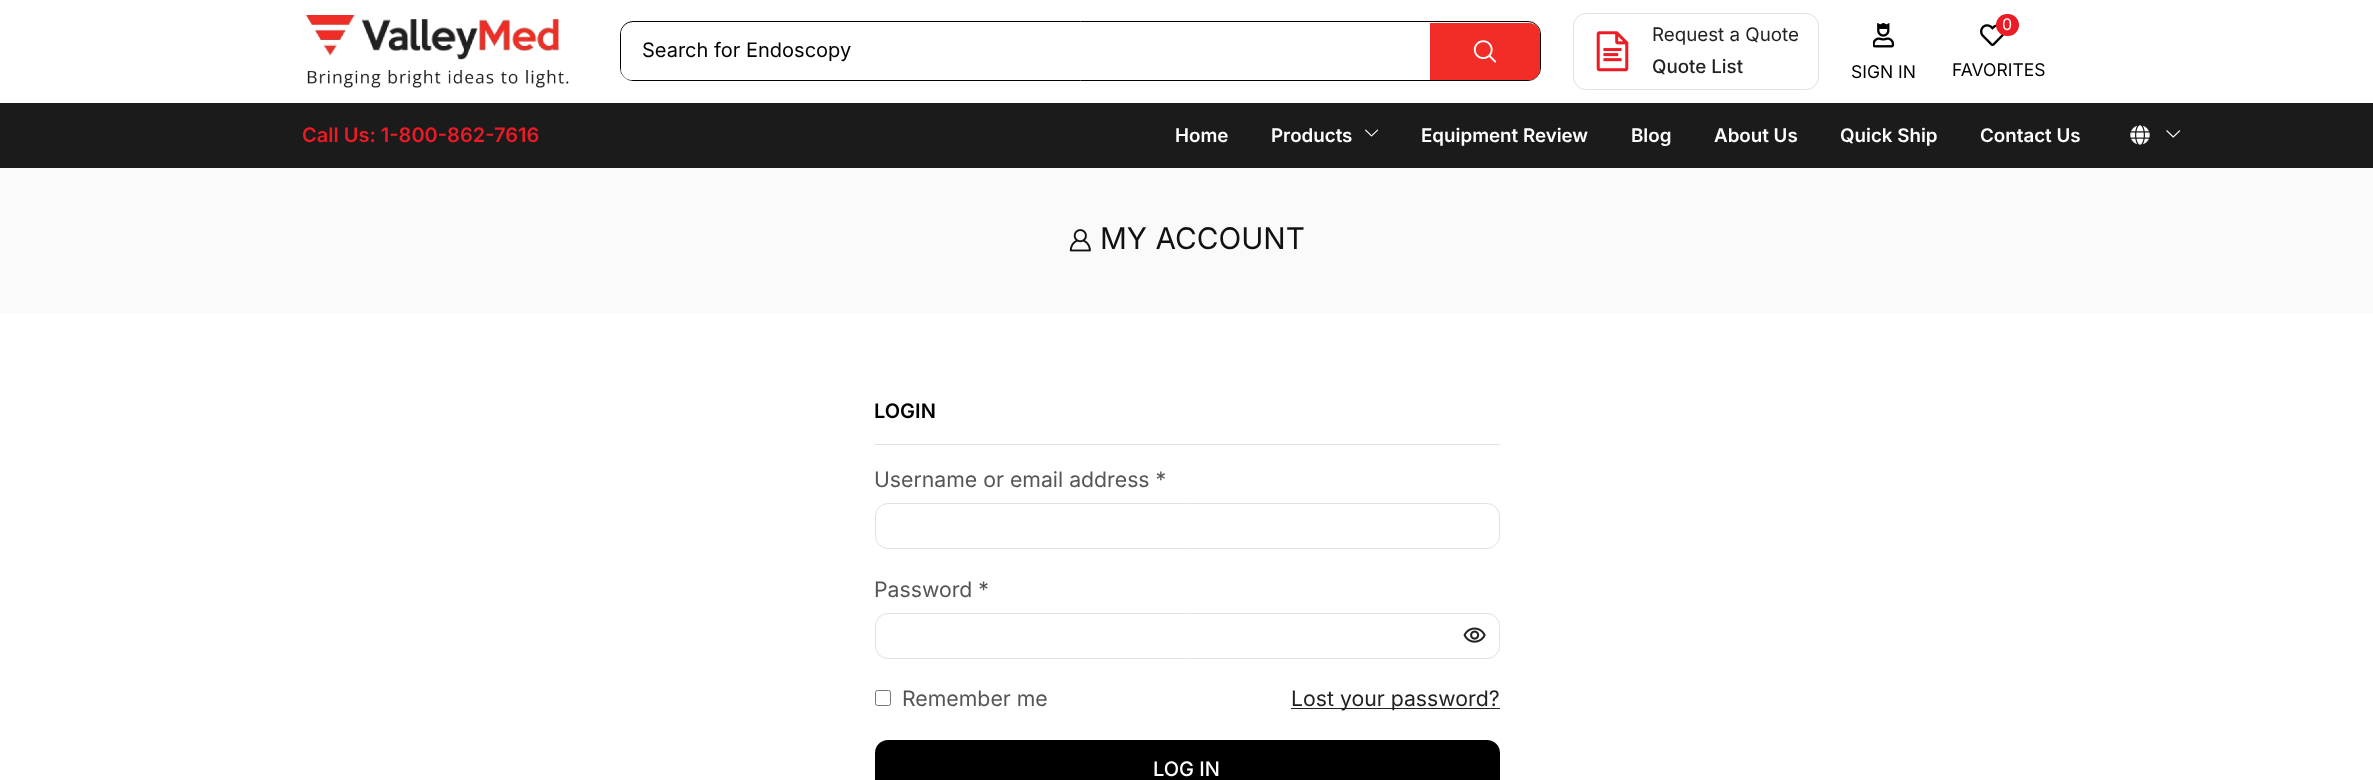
(async () => {
  const canvas = document.querySelector("canvas");
  canvas.width = 2373;
  canvas.height = 780;
  const ctx = canvas.getContext("2d");
  ctx.miterLimit = 4;
  ctx.fontKerning = "normal";
  async function loadImage(src) {
    const img = new Image();
    img.src = src;
    await img.decode();
    return img;
  }

  ctx.fillStyle = "#ffffff";
  ctx.fillRect(0, 0, 2373, 780);
  ctx.drawImage(await loadImage("img/1.png"), 306, 15, 263, 73);
  ctx.beginPath();
  ctx.roundRect(620.5, 21.5, 920, 59, 12.5);
  ctx.strokeStyle = "#000000";
  ctx.stroke();
  ctx.beginPath();
  ctx.roundRect(621, 23, 809, 57, [11, 0, 0, 11]);
  ctx.fill();
  ctx.fillStyle = "#f22c26";
  ctx.beginPath();
  ctx.roundRect(1430, 23, 110, 57, [0, 11, 11, 0]);
  ctx.fill();
  ctx.drawImage(await loadImage("img/2.png"), 1473, 40, 24, 23);
  ctx.beginPath();
  ctx.roundRect(1573.5, 13.5, 245, 76, 12.5);
  ctx.strokeStyle = "#e1e1e1";
  ctx.stroke();
  ctx.drawImage(await loadImage("img/3.png"), 1596, 31, 33, 41);
  ctx.drawImage(await loadImage("img/4.png"), 1980, 24, 24, 22);
  ctx.fillStyle = "#eb1c25";
  ctx.beginPath();
  ctx.roundRect(1996, 14, 23, 22, 11);
  ctx.fill();
  ctx.drawImage(await loadImage("img/5.png"), 1873, 23, 22, 25);
  ctx.fillStyle = "#1b1b1b";
  ctx.fillRect(0, 103, 2373, 65);
  ctx.drawImage(await loadImage("img/6.png"), 1365, 129, 14, 8);
  ctx.drawImage(await loadImage("img/7.png"), 2130, 125, 20, 20);
  ctx.drawImage(await loadImage("img/8.png"), 2166, 130, 15, 8);
  ctx.fillStyle = "#fafafa";
  ctx.fillRect(0, 168, 2373, 145);
  ctx.drawImage(await loadImage("img/9.png"), 1069, 229, 22, 23);
  ctx.fillStyle = "#e1e1e1";
  ctx.fillRect(875, 444, 625, 1);
  ctx.beginPath();
  ctx.roundRect(875.5, 503.5, 624, 45, 12.5);
  ctx.stroke();
  ctx.beginPath();
  ctx.roundRect(875.5, 613.5, 624, 45, 12.5);
  ctx.stroke();
  ctx.drawImage(await loadImage("img/10.png"), 1463, 627, 23, 16);
  ctx.beginPath();
  ctx.roundRect(875.5, 690.5, 15, 15, 2);
  ctx.strokeStyle = "#767676";
  ctx.stroke();
  ctx.fillStyle = "#222222";
  ctx.fillRect(1291, 708, 209, 1);
  ctx.fillStyle = "#000000";
  ctx.beginPath();
  ctx.roundRect(875, 740, 625, 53, 13);
  ctx.fill();
  ctx.font = "20px Inter";
  ctx.fillText("Search for", 642, 57);
  ctx.fillText("Endoscopy", 746, 57);
  ctx.font = "18.75px Inter";
  ctx.fillStyle = "#222222";
  ctx.fillText("Request a Quote", 1652, 41);
  ctx.font = "500 18.75px Inter";
  ctx.fillText("Quote List", 1652, 73);
  ctx.font = "16px Inter";
  ctx.fillStyle = "#ffffff";
  ctx.fillText("0", 2002, 30);
  ctx.font = "17.5px Inter";
  ctx.fillStyle = "#000000";
  ctx.fillText("FAVORITES", 1952, 76);
  ctx.fillText("SIGN IN", 1851, 78);
  ctx.font = "600 20px Inter";
  ctx.fillStyle = "#ea1b25";
  ctx.fillText("Call Us: 1-800-862-7616", 302, 142);
  ctx.font = "600 18.75px Inter";
  ctx.fillStyle = "#ffffff";
  for (const [text, x, y] of [
    ["Home", 1175, 142],
    ["Products", 1271, 142],
    ["Equipment Review", 1421, 142],
    ["Blog", 1631, 142],
    ["About Us", 1714, 142],
    ["Quick Ship", 1840, 142],
    ["Contact Us", 1980, 142],
  ]) {
    ctx.fillText(text, x, y);
  }
  ctx.font = "29.75px Inter";
  ctx.fillStyle = "#111111";
  ctx.fillText("MY ACCOUNT", 1100, 249);
  ctx.font = "600 20px Inter";
  ctx.fillStyle = "#000000";
  ctx.fillText("LOGIN", 874, 418);
  ctx.font = "21.25px Inter";
  ctx.fillStyle = "#555555";
  for (const [text, x, y] of [
    ["Username or email address *", 874, 487],
    ["Password *", 874, 597],
    ["Remember me", 902, 706],
  ]) {
    ctx.fillText(text, x, y);
  }
  ctx.fillStyle = "#222222";
  ctx.fillText("Lost your password?", 1291, 706);
  ctx.font = "500 20px Inter";
  ctx.fillStyle = "#ffffff";
  ctx.fillText("LOG IN", 1153, 776);
})();
